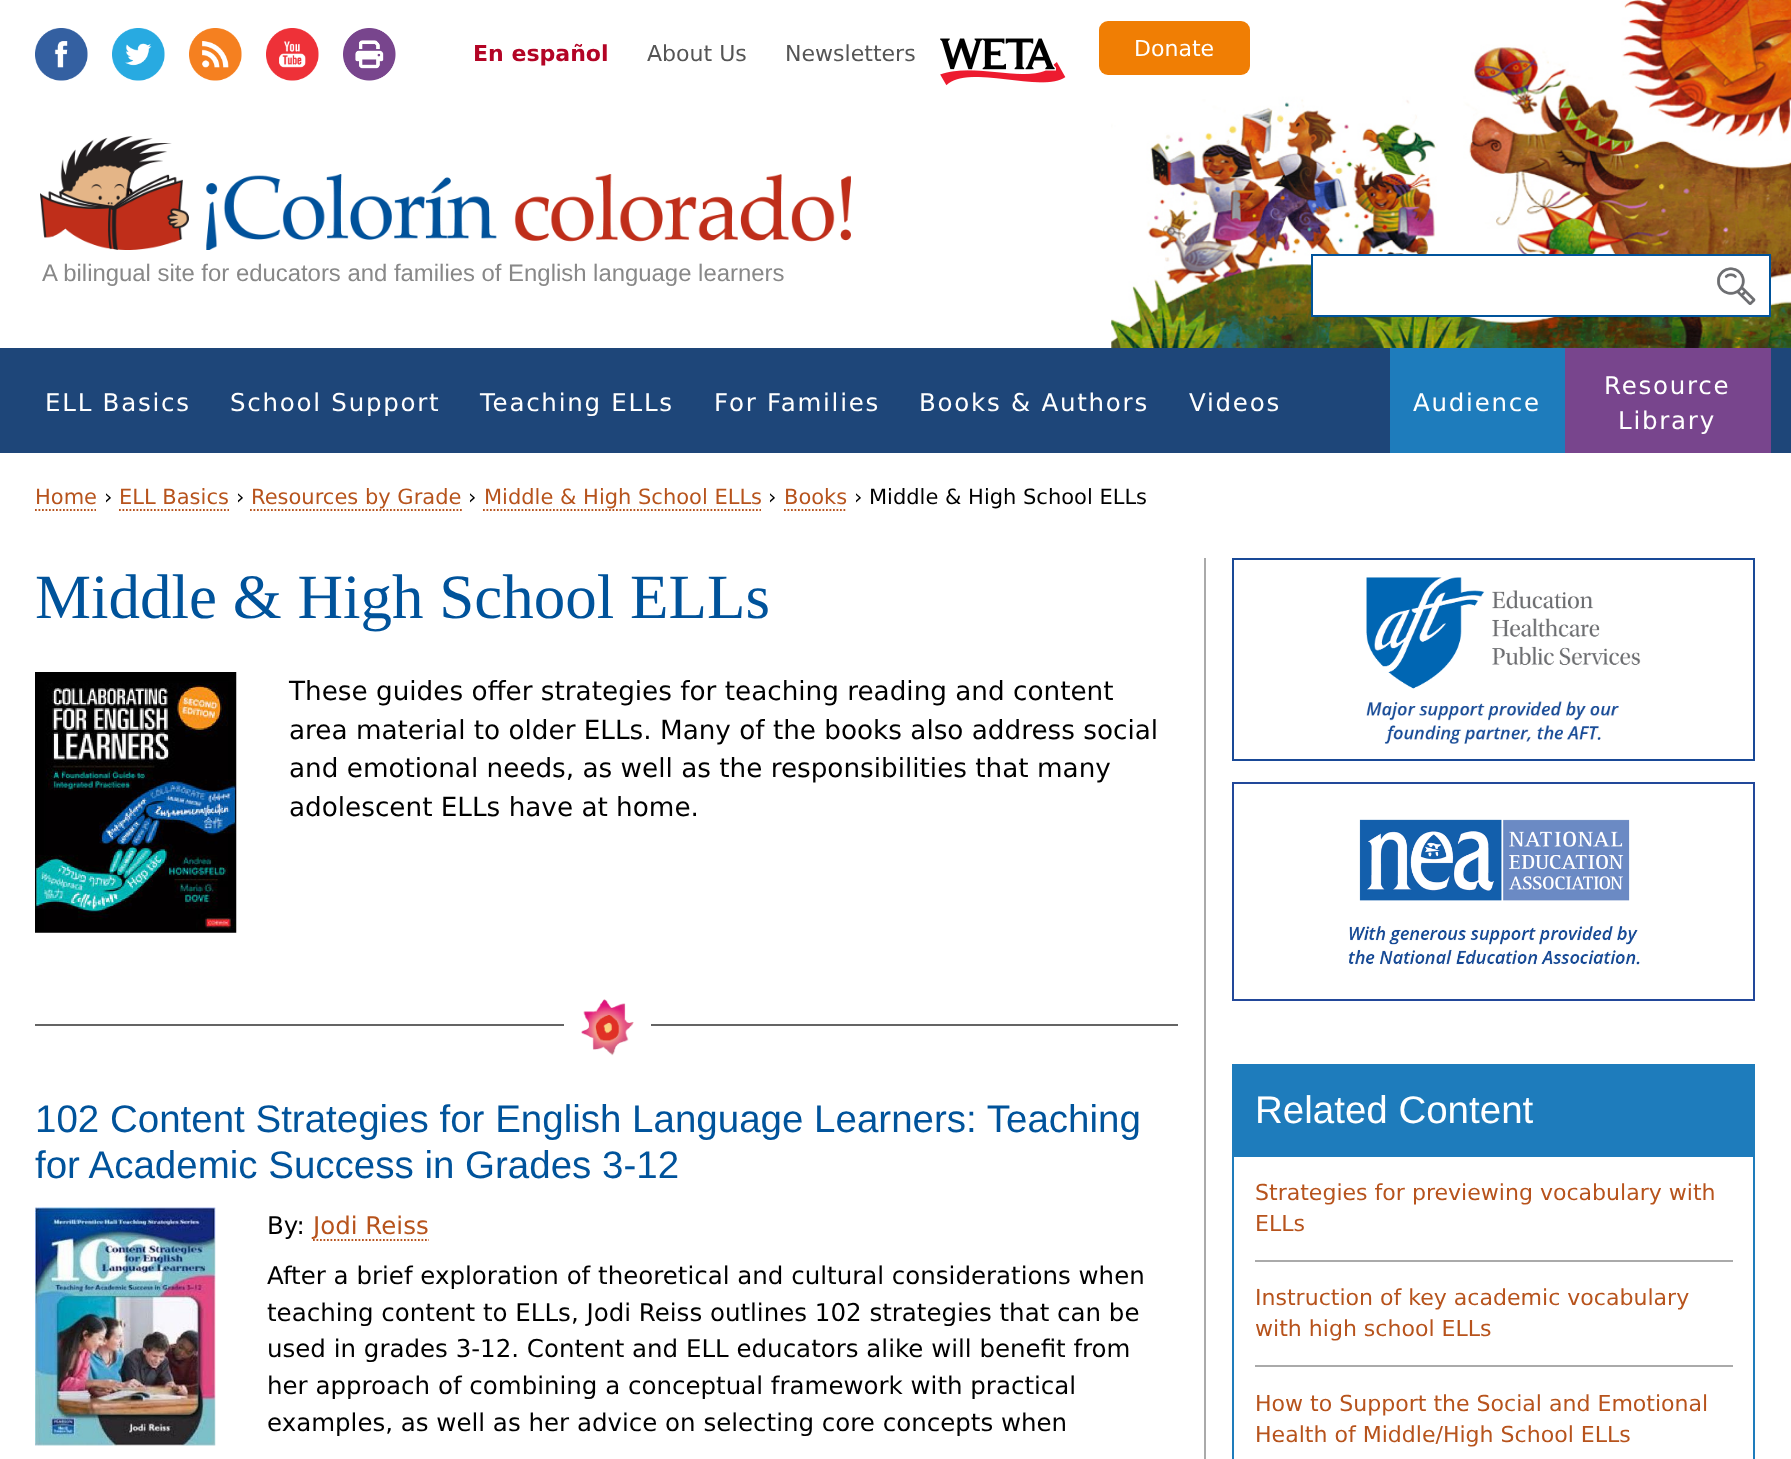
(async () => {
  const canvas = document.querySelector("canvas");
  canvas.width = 1791;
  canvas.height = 1459;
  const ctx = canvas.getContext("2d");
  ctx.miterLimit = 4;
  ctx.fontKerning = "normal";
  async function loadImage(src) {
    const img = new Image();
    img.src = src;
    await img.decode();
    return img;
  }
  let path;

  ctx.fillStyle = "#ffffff";
  ctx.fillRect(0, 0, 1791, 1459);
  ctx.drawImage(await loadImage("img/1.png"), 1111, 0, 680, 348);
  ctx.drawImage(await loadImage("img/2.png"), 35, 28, 53, 53);
  ctx.drawImage(await loadImage("img/3.png"), 112, 28, 53, 53);
  ctx.drawImage(await loadImage("img/4.png"), 189, 28, 53, 53);
  ctx.drawImage(await loadImage("img/5.png"), 266, 28, 53, 53);
  ctx.drawImage(await loadImage("img/6.png"), 343, 28, 53, 53);
  ctx.drawImage(await loadImage("img/7.png"), 940, 38, 126, 48);
  ctx.fillStyle = "#f07e04";
  ctx.beginPath();
  ctx.roundRect(1099, 21, 151, 54, 9);
  ctx.fill();
  ctx.drawImage(await loadImage("img/8.png"), 40, 136, 811, 114);
  ctx.fillStyle = "#ffffff";
  ctx.beginPath();
  ctx.rect(1312, 255, 458, 61);
  ctx.fill();
  ctx.strokeStyle = "#00539b";
  ctx.lineWidth = 2;
  ctx.stroke();
  ctx.drawImage(await loadImage("img/9.png"), 1717, 267, 39, 38);
  for (const [x, y, w, h, color] of [
    [0, 348, 1791, 105, "#1e4679"],
    [1390, 348, 175, 105, "#1e7cbc"],
    [1565, 348, 206, 105, "#78458d"],
  ]) {
    ctx.fillStyle = color;
    ctx.fillRect(x, y, w, h);
  }
  path = new Path2D("M35 510H96");
  ctx.strokeStyle = "#b7531c";
  ctx.lineWidth = 1.8;
  ctx.setLineDash([1.75, 1.75]);
  ctx.stroke(path);
  path = new Path2D("M119 510H229");
  ctx.stroke(path);
  path = new Path2D("M250 510H462");
  ctx.stroke(path);
  path = new Path2D("M483 510H761");
  ctx.stroke(path);
  path = new Path2D("M784 510H847");
  ctx.stroke(path);
  ctx.fillStyle = "#aaaaaa";
  ctx.fillRect(1204, 558, 2, 901);
  ctx.drawImage(await loadImage("img/10.png"), 35, 672, 202, 261);
  ctx.fillStyle = "#646464";
  ctx.fillRect(35, 1024, 1143, 2);
  ctx.fillStyle = "#ffffff";
  ctx.fillRect(564, 1024, 87, 2);
  ctx.drawImage(await loadImage("img/11.png"), 581, 999, 53, 57);
  ctx.drawImage(await loadImage("img/12.png"), 35, 1207, 181, 239);
  path = new Path2D("M313 1240H429");
  ctx.stroke(path);
  ctx.strokeStyle = "#194997";
  ctx.lineWidth = 2;
  ctx.setLineDash([]);
  ctx.strokeRect(1233, 559, 521, 201);
  ctx.drawImage(await loadImage("img/13.png"), 1366, 577, 275, 167);
  ctx.strokeStyle = "#22489a";
  ctx.strokeRect(1233, 783, 521, 217);
  ctx.drawImage(await loadImage("img/14.png"), 1348, 819, 292, 146);
  ctx.strokeStyle = "#1e7cbc";
  ctx.strokeRect(1233, 1065, 521, 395);
  for (const [x, y, w, h, color] of [
    [1234, 1066, 519, 91, "#1e7cbc"],
    [1255, 1260, 478, 2, "#aaaaaa"],
    [1255, 1365, 478, 2, "#aaaaaa"],
  ]) {
    ctx.fillStyle = color;
    ctx.fillRect(x, y, w, h);
  }
  ctx.font = "bold 22.05px DejaVu Sans";
  ctx.fillStyle = "#b30425";
  ctx.fillText("En español", 473, 61);
  ctx.font = "22.05px DejaVu Sans";
  ctx.fillStyle = "#555555";
  ctx.fillText("About Us", 647, 61);
  ctx.fillText("Newsletters", 785, 61);
  ctx.fillStyle = "#ffffff";
  ctx.fillText("Donate", 1134, 56);
  ctx.font = "23.9px Liberation Sans";
  ctx.fillStyle = "#888888";
  ctx.fillText("A bilingual site for educators and families of English language learners", 42, 281);
  ctx.letterSpacing = "1.75px";
  ctx.font = "24.5px DejaVu Sans";
  ctx.fillStyle = "#ffffff";
  for (const [text, x, y] of [
    ["ELL Basics", 45, 411],
    ["School Support", 230, 411],
    ["Teaching ELLs", 480, 411],
    ["For Families", 714, 411],
    ["Books & Authors", 919, 411],
    ["Videos", 1189, 411],
    ["Audience", 1413, 411],
    ["Resource", 1604, 394],
    ["Library", 1618, 429],
  ]) {
    ctx.fillText(text, x, y);
  }
  ctx.letterSpacing = "0px";
  ctx.font = "21px DejaVu Sans";
  ctx.fillStyle = "#b7531c";
  ctx.fillText("Home", 35, 504);
  ctx.fillStyle = "#000000";
  ctx.fillText("›", 104, 504);
  ctx.fillStyle = "#b7531c";
  ctx.fillText("ELL Basics", 119, 504);
  ctx.fillStyle = "#000000";
  ctx.fillText("›", 236, 504);
  ctx.fillStyle = "#b7531c";
  ctx.fillText("Resources by Grade", 251, 504);
  ctx.fillStyle = "#000000";
  ctx.fillText("›", 468, 504);
  ctx.fillStyle = "#b7531c";
  ctx.fillText("Middle & High School ELLs", 484, 504);
  ctx.fillStyle = "#000000";
  ctx.fillText("›", 768, 504);
  ctx.fillStyle = "#b7531c";
  ctx.fillText("Books", 784, 504);
  ctx.fillStyle = "#000000";
  ctx.fillText("›", 854, 504);
  ctx.fillText("Middle & High School ELLs", 869, 504);
  ctx.font = "63px Liberation Serif";
  ctx.fillStyle = "#00539b";
  ctx.fillText("Middle & High School ELLs", 35, 618);
  ctx.font = "26.25px DejaVu Sans";
  ctx.fillStyle = "#000000";
  for (const [text, x, y] of [
    ["These guides offer strategies for teaching reading and content", 289, 700],
    ["area material to older ELLs. Many of the books also address social", 289, 739],
    ["and emotional needs, as well as the responsibilities that many", 289, 777],
    ["adolescent ELLs have at home.", 289, 816],
  ]) {
    ctx.fillText(text, x, y);
  }
  ctx.font = "38.5px Liberation Sans";
  ctx.fillStyle = "#00539b";
  ctx.fillText("102 Content Strategies for English Language Learners: Teaching", 35, 1132);
  ctx.fillText("for Academic Success in Grades 3-12", 35, 1178);
  ctx.font = "24.5px DejaVu Sans";
  ctx.fillStyle = "#000000";
  ctx.fillText("By:", 267, 1234);
  ctx.fillStyle = "#b7531c";
  ctx.fillText("Jodi Reiss", 313, 1234);
  ctx.fillStyle = "#000000";
  for (const [text, x, y] of [
    ["After a brief exploration of theoretical and cultural considerations when", 267, 1284],
    ["teaching content to ELLs, Jodi Reiss outlines 102 strategies that can be", 267, 1321],
    ["used in grades 3-12. Content and ELL educators alike will benefit from", 267, 1357],
    ["her approach of combining a conceptual framework with practical", 267, 1394],
    ["examples, as well as her advice on selecting core concepts when", 267, 1431],
  ]) {
    ctx.fillText(text, x, y);
  }
  ctx.font = "38.5px Liberation Sans";
  ctx.fillStyle = "#ffffff";
  ctx.fillText("Related Content", 1255, 1123);
  ctx.font = "22.05px DejaVu Sans";
  ctx.fillStyle = "#b7531c";
  for (const [text, x, y] of [
    ["Strategies for previewing vocabulary with", 1255, 1200],
    ["ELLs", 1255, 1231],
    ["Instruction of key academic vocabulary", 1255, 1305],
    ["with high school ELLs", 1255, 1336],
    ["How to Support the Social and Emotional", 1255, 1411],
    ["Health of Middle/High School ELLs", 1255, 1442],
  ]) {
    ctx.fillText(text, x, y);
  }
})();
